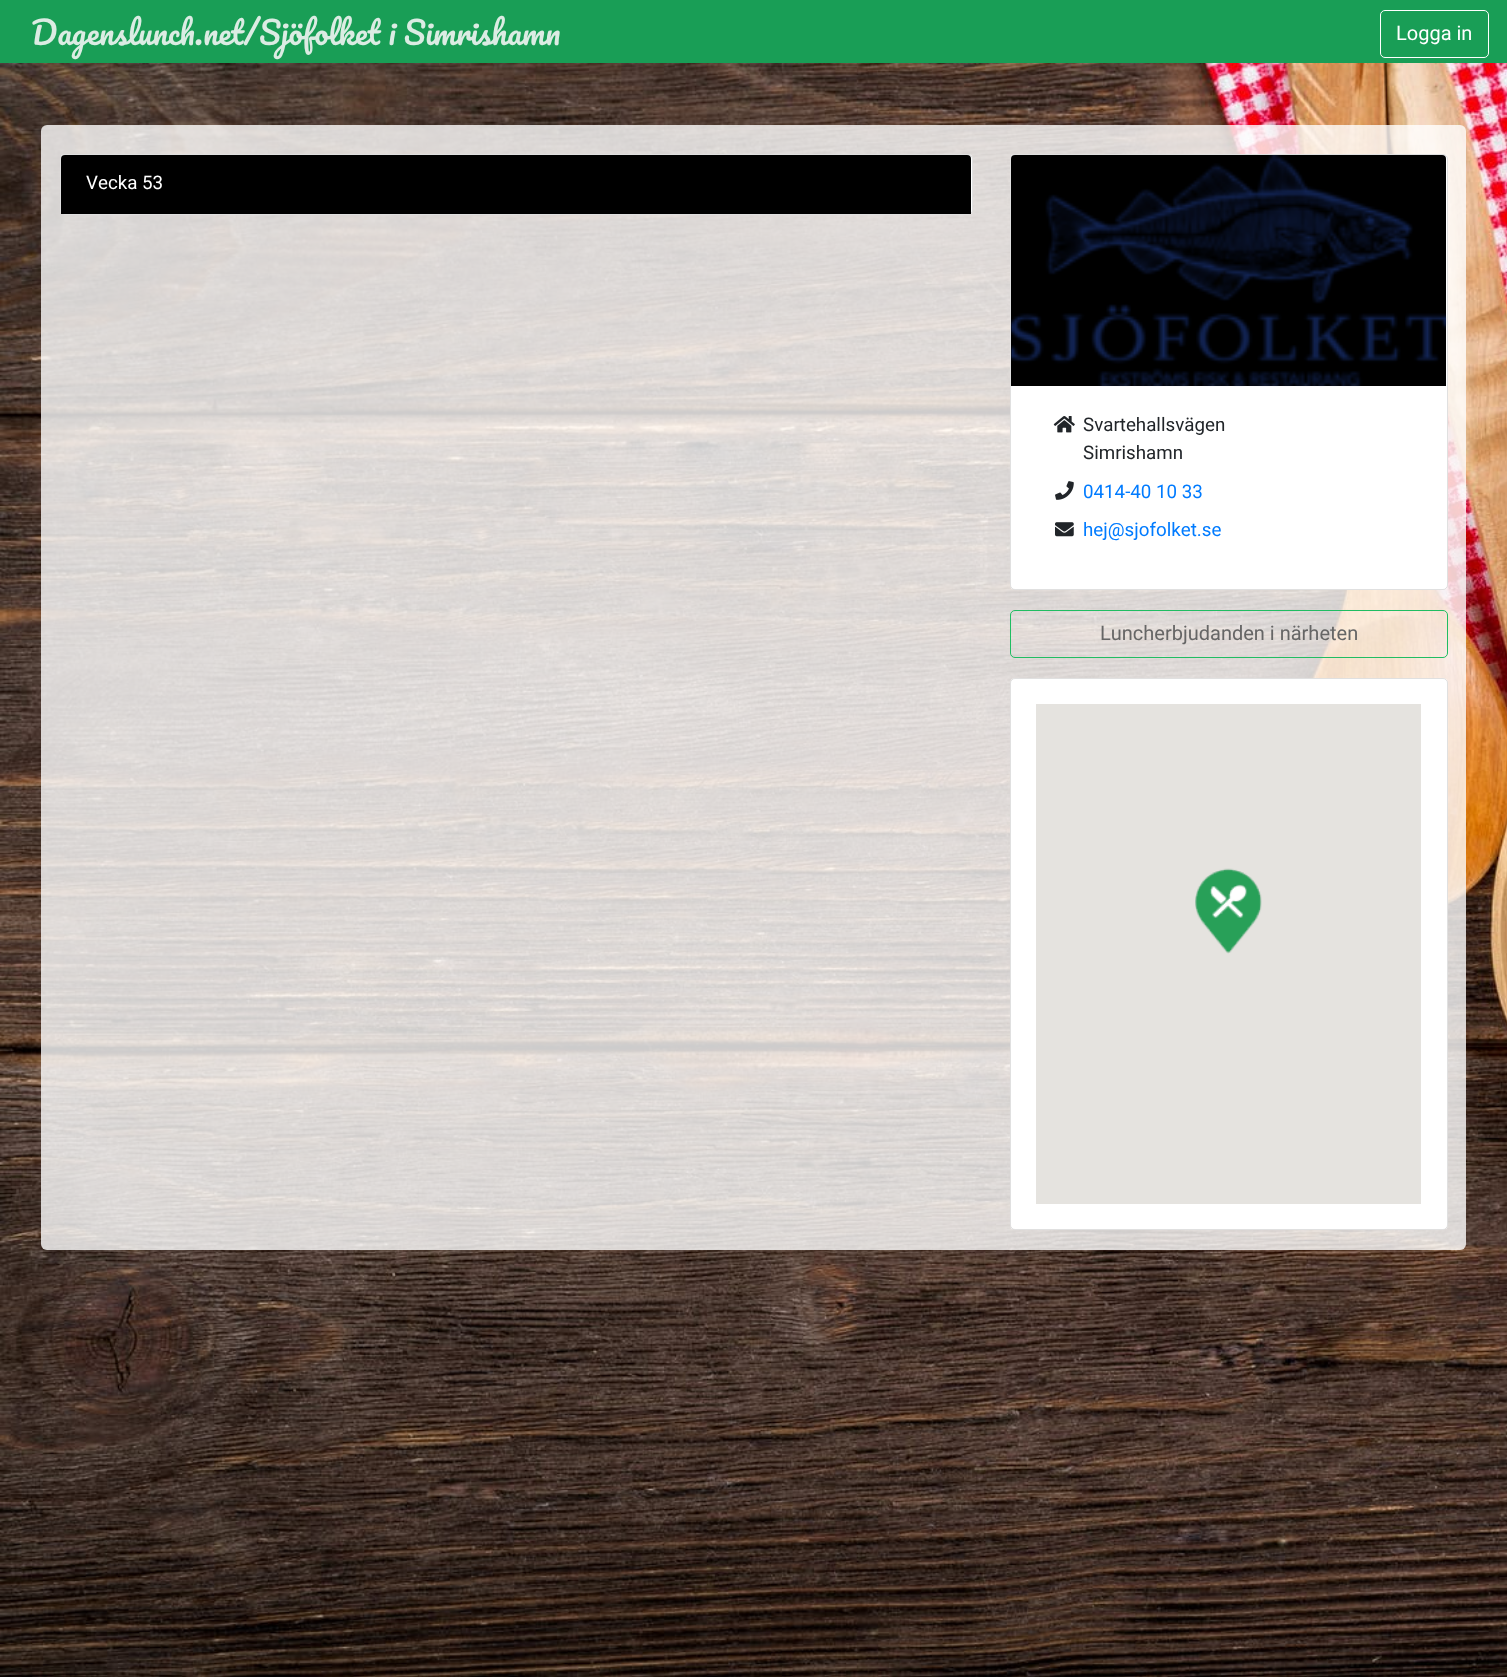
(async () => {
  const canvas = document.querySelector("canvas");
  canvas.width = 1507;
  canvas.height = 1677;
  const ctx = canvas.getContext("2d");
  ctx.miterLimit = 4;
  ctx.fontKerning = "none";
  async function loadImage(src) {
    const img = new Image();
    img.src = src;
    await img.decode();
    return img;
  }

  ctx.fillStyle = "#ffffff";
  ctx.fillRect(0, 0, 1507, 1677);
  ctx.drawImage(await loadImage("img/1.png"), 0, 63, 1507, 1614);
  ctx.fillStyle = "#199e56";
  ctx.fillRect(0, 0, 1507, 63);
  ctx.beginPath();
  ctx.roundRect(1380.5, 10.5, 108, 47, 4.5);
  ctx.strokeStyle = "#ffffff";
  ctx.stroke();
  ctx.fillStyle = "rgba(255, 255, 255, 0.8)";
  ctx.beginPath();
  ctx.roundRect(41, 125, 1425, 1125, 6);
  ctx.fill();
  ctx.fillStyle = "#ffffff";
  ctx.beginPath();
  ctx.roundRect(60, 154, 913, 61, 5);
  ctx.fill();
  ctx.beginPath();
  ctx.roundRect(60.5, 154.5, 912, 60, 4.5);
  ctx.strokeStyle = "rgba(0, 0, 0, 0.12)";
  ctx.stroke();
  ctx.fillStyle = "#000000";
  ctx.beginPath();
  ctx.roundRect(61, 155, 910, 59, [4, 4, 0, 0]);
  ctx.fill();
  ctx.fillStyle = "#ffffff";
  ctx.beginPath();
  ctx.roundRect(1010, 154, 438, 436, 5);
  ctx.fill();
  ctx.beginPath();
  ctx.roundRect(1010.5, 154.5, 437, 435, 4.5);
  ctx.stroke();
  ctx.fillStyle = "#000000";
  ctx.beginPath();
  ctx.roundRect(1011, 155, 435, 231, [4, 4, 0, 0]);
  ctx.fill();
  ctx.drawImage(await loadImage("img/2.png"), 1011, 155, 436, 232);
  ctx.drawImage(await loadImage("img/3.png"), 1053, 416, 22, 17);
  ctx.drawImage(await loadImage("img/4.png"), 1055, 481, 19, 19);
  ctx.drawImage(await loadImage("img/5.png"), 1055, 522, 19, 15);
  ctx.beginPath();
  ctx.roundRect(1010.5, 610.5, 437, 47, 4.5);
  ctx.strokeStyle = "#20bd62";
  ctx.stroke();
  ctx.fillStyle = "#ffffff";
  ctx.beginPath();
  ctx.roundRect(1010, 678, 438, 552, 5);
  ctx.fill();
  ctx.beginPath();
  ctx.roundRect(1010.5, 678.5, 437, 551, 4.5);
  ctx.strokeStyle = "rgba(0, 0, 0, 0.12)";
  ctx.stroke();
  ctx.fillStyle = "#e5e3df";
  ctx.fillRect(1036, 704, 385, 500);
  ctx.drawImage(await loadImage("img/6.png"), 1195, 868, 67, 86);
  ctx.font = "31.25px Pacifico";
  ctx.fillStyle = "#dbece3";
  ctx.fillText("Dagenslunch.net/", 31, 45);
  ctx.fillText("Sjöfolket i Simrishamn", 259, 45);
  ctx.font = "20px Roboto";
  ctx.fillStyle = "#ffffff";
  ctx.fillText("Logga in", 1396, 40);
  ctx.font = "18.75px Roboto";
  ctx.fillText("Vecka 53", 86, 189);
  ctx.fillStyle = "#212529";
  ctx.fillText("Svartehallsvägen", 1083, 431);
  ctx.fillText("Simrishamn", 1083, 459);
  ctx.fillStyle = "#007bff";
  ctx.fillText("0414-40 10 33", 1083, 498);
  ctx.fillText("hej@sjofolket.se", 1083, 536);
  ctx.font = "20px Roboto";
  ctx.fillStyle = "#666666";
  ctx.fillText("Luncherbjudanden i närheten", 1100, 640);
})();
